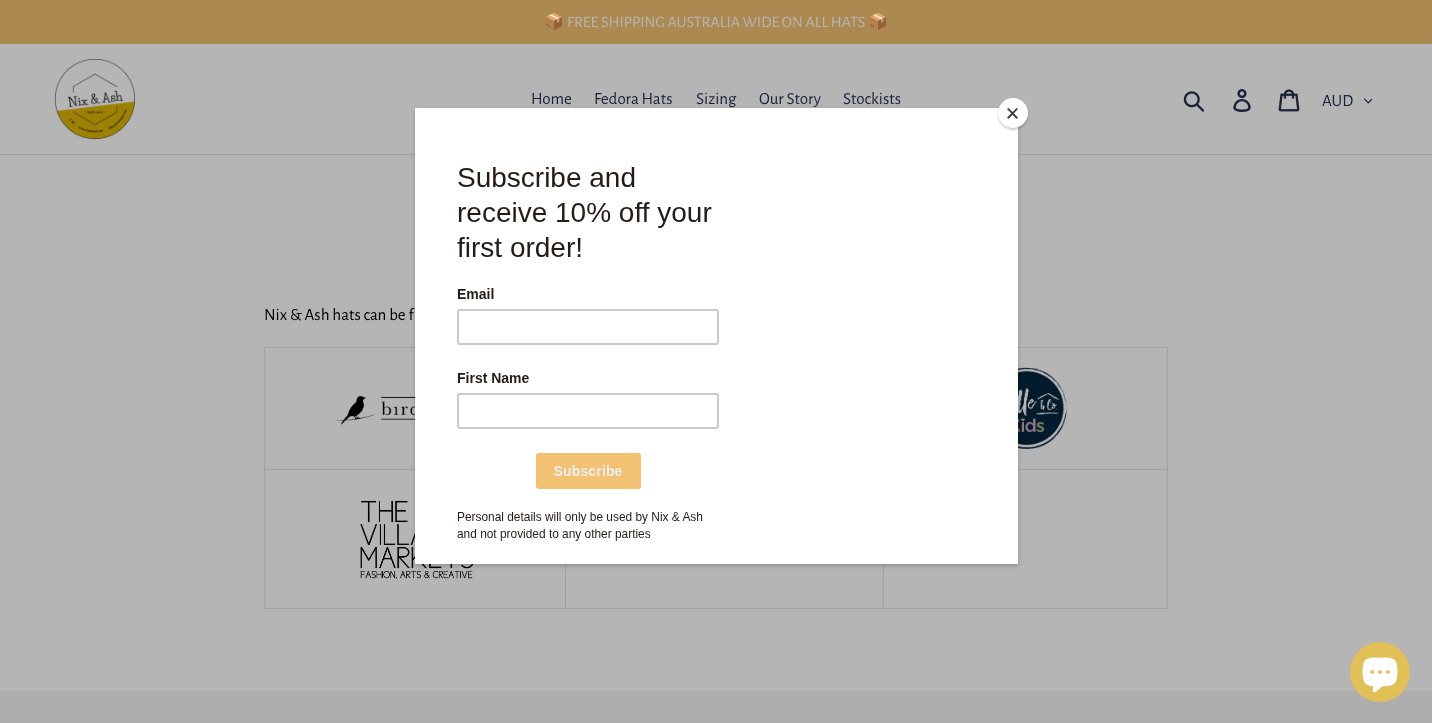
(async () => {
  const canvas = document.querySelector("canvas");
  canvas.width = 1432;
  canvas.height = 723;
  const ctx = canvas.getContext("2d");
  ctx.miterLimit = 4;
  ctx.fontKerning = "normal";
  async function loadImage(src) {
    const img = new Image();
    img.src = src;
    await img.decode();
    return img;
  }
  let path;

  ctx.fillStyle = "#b5b5b5";
  ctx.fillRect(0, 0, 1432, 723);
  ctx.fillStyle = "#ac8951";
  ctx.fillRect(0, 0, 1432, 44);
  ctx.fillStyle = "#a2a2a2";
  ctx.fillRect(0, 154, 1432, 1);
  ctx.drawImage(await loadImage("img/1.png"), 55, 59, 80, 80);
  ctx.drawImage(await loadImage("img/2.png"), 1183, 91, 22, 21);
  ctx.drawImage(await loadImage("img/3.png"), 1233, 89, 18, 23);
  ctx.drawImage(await loadImage("img/4.png"), 1278, 89, 22, 23);
  ctx.drawImage(await loadImage("img/5.png"), 1364, 98, 8, 6);
  for (const [x, y, w, h, color] of [
    [264, 347, 151, 1, "#a2a2a2"],
    [264, 469, 151, 1, "#a2a2a2"],
    [1018, 469, 150, 1, "#a2a2a2"],
    [1167, 469, 1, 140, "#a2a2a2"],
    [883, 608, 285, 1, "#a2a2a2"],
    [883, 564, 1, 45, "#a2a2a2"],
    [565, 608, 319, 1, "#a2a2a2"],
    [565, 564, 1, 45, "#a2a2a2"],
    [264, 608, 302, 1, "#a2a2a2"],
    [264, 469, 1, 140, "#a2a2a2"],
    [264, 347, 1, 123, "#a2a2a2"],
  ]) {
    ctx.fillStyle = color;
    ctx.fillRect(x, y, w, h);
  }
  ctx.drawImage(await loadImage("img/6.png"), 335, 395, 80, 30);
  ctx.fillRect(1018, 347, 150, 1);
  ctx.fillRect(1167, 347, 1, 123);
  ctx.drawImage(await loadImage("img/7.png"), 1018, 367, 49, 83);
  ctx.drawImage(await loadImage("img/8.png"), 360, 500, 113, 79);
  ctx.fillStyle = "#aeaeae";
  ctx.fillRect(0, 691, 1432, 32);
  ctx.fillStyle = "rgba(0, 0, 0, 0.2)";
  ctx.filter = "blur(2px)";
  ctx.beginPath();
  ctx.rect(415, 110, 603, 456);
  ctx.fill();
  ctx.filter = "none";
  ctx.drawImage(await loadImage("img/9.png"), 415, 108, 603, 456);
  ctx.filter = "blur(1px)";
  ctx.beginPath();
  ctx.roundRect(998, 100, 30, 30, 15);
  ctx.fill();
  ctx.filter = "none";
  ctx.fillStyle = "#ffffff";
  ctx.beginPath();
  ctx.arc(1013, 113, 15, 0, Math.PI * 2);
  ctx.fill();
  ctx.fillStyle = "#414141";
  path = new Path2D("M1016.5 108L1018 109L1008.5 119L1007 117.5Z");
  ctx.fill(path);
  path = new Path2D("M1007 109L1008.5 108L1018 117.5L1016.5 119Z");
  ctx.fill(path);
  ctx.fillStyle = "#e1c056";
  ctx.beginPath();
  ctx.arc(1380, 672, 30, 0, Math.PI * 2);
  ctx.fill();
  ctx.drawImage(await loadImage("img/10.png"), 1362, 657, 36, 36);
  ctx.font = "16px Noto Color Emoji";
  ctx.fillStyle = "#b5b5b5";
  ctx.fillText("📦", 544, 27);
  ctx.font = "16px Alegreya Sans";
  ctx.fillText("FREE SHIPPING AUSTRALIA WIDE ON ALL HATS", 567, 27);
  ctx.font = "16px Noto Color Emoji";
  ctx.fillText("📦", 868, 27);
  ctx.font = "17px Alegreya Sans";
  ctx.fillStyle = "#192337";
  for (const [text, x, y] of [
    ["Home", 531, 104],
    ["Fedora Hats", 594, 104],
    ["Sizing", 696, 104],
    ["Our Story", 759, 104],
    ["Stockists", 843, 104],
    ["AUD", 1322, 106],
  ]) {
    ctx.fillText(text, x, y);
  }
  ctx.fillStyle = "#000000";
  ctx.fillText("Nix & Ash hats can be f", 264, 320);
})();
